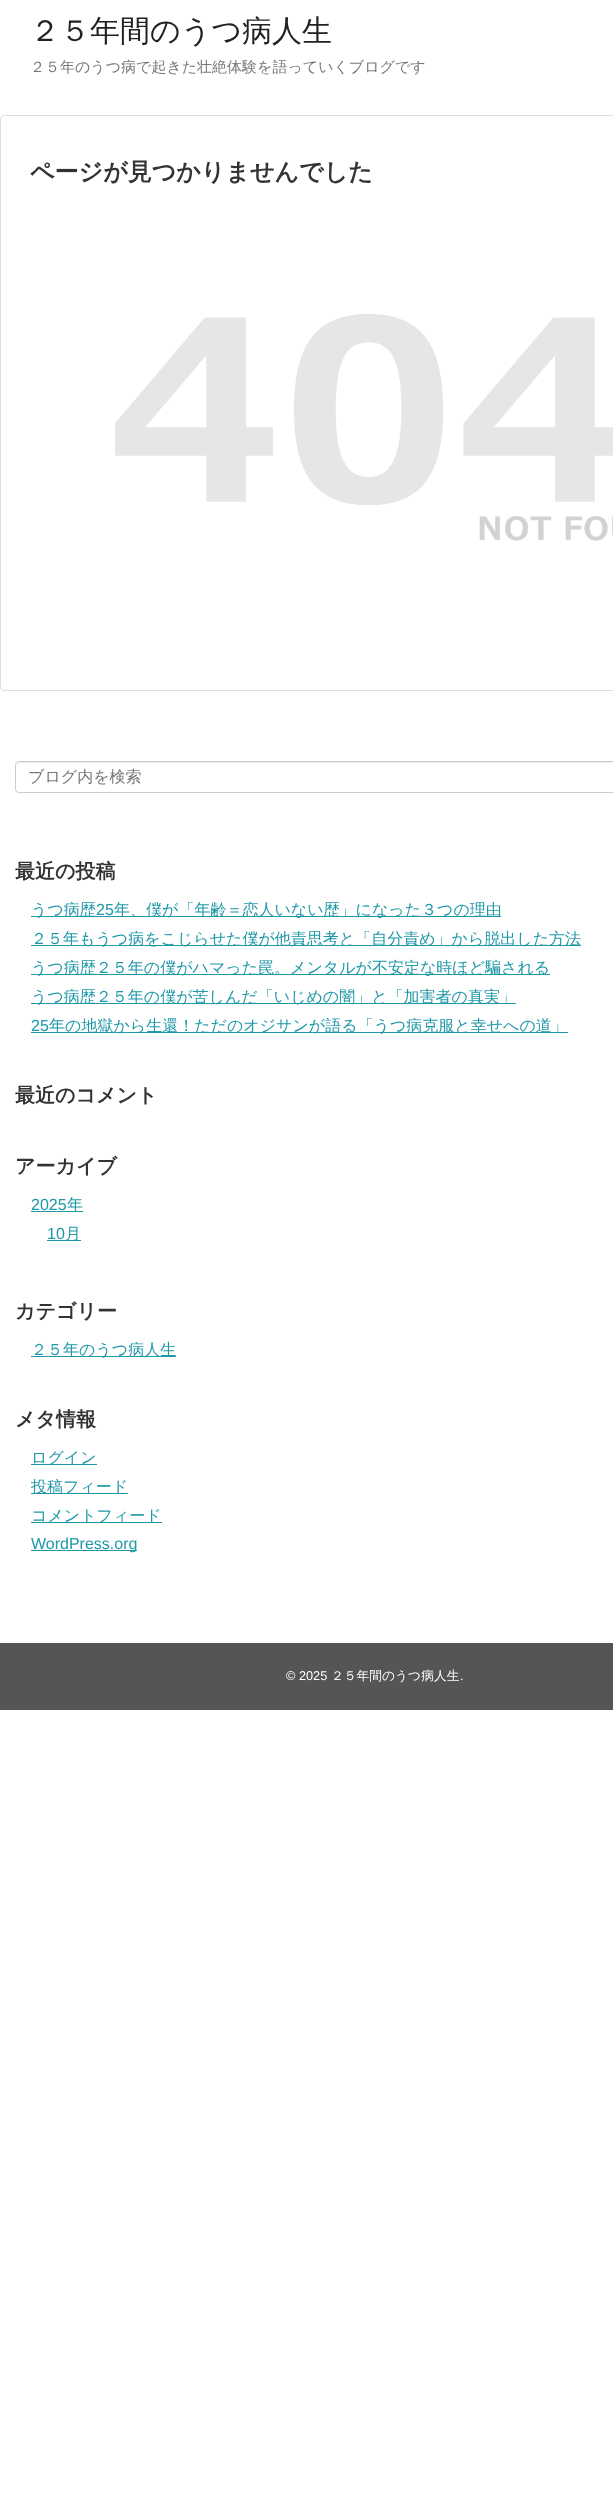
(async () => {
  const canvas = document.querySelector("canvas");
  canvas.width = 613;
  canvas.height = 2493;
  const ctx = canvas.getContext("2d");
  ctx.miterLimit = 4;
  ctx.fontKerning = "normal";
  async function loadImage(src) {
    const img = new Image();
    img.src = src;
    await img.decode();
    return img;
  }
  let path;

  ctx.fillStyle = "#ffffff";
  ctx.fillRect(0, 0, 613, 2493);
  ctx.beginPath();
  ctx.roundRect(0.5, 115.5, 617, 575, 3.5);
  ctx.strokeStyle = "#dddddd";
  ctx.stroke();
  ctx.drawImage(await loadImage("img/1.png"), 115, 314, 498, 227);
  ctx.fillStyle = "#ececec";
  path = new Path2D("M19 763H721C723 763 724 764 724 766C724 764 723 762 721 762H19C17 762 16 764 16 766C16 764 17 763 19 763Z");
  ctx.fill(path);
  ctx.beginPath();
  ctx.roundRect(15.5, 761.5, 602, 31, 3.5);
  ctx.strokeStyle = "#cccccc";
  ctx.stroke();
  for (const [x, y, w, h, color] of [
    [31, 916, 470, 1, "#2098a8"],
    [31, 945, 550, 1, "#2098a8"],
    [31, 974, 519, 1, "#2098a8"],
    [31, 1003, 485, 1, "#2098a8"],
    [31, 1032, 537, 1, "#2098a8"],
    [31, 1211, 52, 1, "#2098a8"],
    [47, 1240, 34, 1, "#2098a8"],
    [31, 1356, 145, 1, "#2098a8"],
    [31, 1464, 66, 1, "#2098a8"],
    [31, 1493, 97, 1, "#2098a8"],
    [31, 1522, 131, 1, "#2098a8"],
    [31, 1550, 106, 1, "#2098a8"],
    [0, 1643, 613, 67, "#555555"],
  ]) {
    ctx.fillStyle = color;
    ctx.fillRect(x, y, w, h);
  }
  ctx.font = "500 30px WenQuanYi Zen Hei";
  ctx.fillStyle = "#222222";
  ctx.fillText("２５年間のうつ病人生", 30, 41);
  ctx.font = "500 15px WenQuanYi Zen Hei";
  ctx.fillStyle = "#777777";
  ctx.fillText("２５年のうつ病で起きた壮絶体験を語っていくブログです", 30, 72);
  ctx.font = "bold 24px WenQuanYi Zen Hei";
  ctx.fillStyle = "#333333";
  ctx.fillText("ページが見つかりませんでした", 30, 180);
  ctx.font = "500 16px WenQuanYi Zen Hei";
  ctx.fillStyle = "#777777";
  ctx.fillText("ブログ内を検索", 28, 782);
  ctx.font = "bold 20px WenQuanYi Zen Hei";
  ctx.fillStyle = "#333333";
  ctx.fillText("最近の投稿", 15, 878);
  ctx.font = "500 16px WenQuanYi Zen Hei";
  ctx.fillStyle = "#2098a8";
  ctx.fillText("うつ病歴", 31, 915);
  ctx.font = "16px Liberation Sans";
  ctx.fillText("25", 96, 915);
  ctx.font = "500 16px WenQuanYi Zen Hei";
  for (const [text, x, y] of [
    ["年、僕が「年齢＝恋人いない歴」になった３つの理由", 114, 915],
    ["２５年もうつ病をこじらせた僕が他責思考と「自分責め」から脱出した方法", 31, 944],
    ["うつ病歴２５年の僕がハマった罠。メンタルが不安定な時ほど騙される", 31, 973],
    ["うつ病歴２５年の僕が苦しんだ「いじめの闇」と「加害者の真実」", 31, 1002],
  ]) {
    ctx.fillText(text, x, y);
  }
  ctx.font = "16px Liberation Sans";
  ctx.fillText("25", 31, 1031);
  ctx.font = "500 16px WenQuanYi Zen Hei";
  ctx.fillText("年の地獄から生還！ただのオジサンが語る「うつ病克服と幸せへの道」", 49, 1031);
  ctx.font = "bold 20px WenQuanYi Zen Hei";
  ctx.fillStyle = "#333333";
  ctx.fillText("最近のコメント", 15, 1102);
  ctx.fillText("アーカイブ", 15, 1173);
  ctx.font = "16px Liberation Sans";
  ctx.fillStyle = "#2098a8";
  ctx.fillText("2025", 31, 1210);
  ctx.font = "500 16px WenQuanYi Zen Hei";
  ctx.fillText("年", 67, 1210);
  ctx.font = "16px Liberation Sans";
  ctx.fillText("10", 47, 1239);
  ctx.font = "500 16px WenQuanYi Zen Hei";
  ctx.fillText("月", 65, 1239);
  ctx.font = "bold 20px WenQuanYi Zen Hei";
  ctx.fillStyle = "#333333";
  ctx.fillText("カテゴリー", 15, 1318);
  ctx.font = "500 16px WenQuanYi Zen Hei";
  ctx.fillStyle = "#2098a8";
  ctx.fillText("２５年のうつ病人生", 31, 1355);
  ctx.font = "bold 20px WenQuanYi Zen Hei";
  ctx.fillStyle = "#333333";
  ctx.fillText("メタ情報", 15, 1426);
  ctx.font = "500 16px WenQuanYi Zen Hei";
  ctx.fillStyle = "#2098a8";
  for (const [text, x, y] of [
    ["ログイン", 31, 1463],
    ["投稿フィード", 31, 1492],
    ["コメントフィード", 31, 1521],
  ]) {
    ctx.fillText(text, x, y);
  }
  ctx.font = "16px Liberation Sans";
  ctx.fillText("WordPress.org", 31, 1549);
  ctx.font = "12.75px Liberation Sans";
  ctx.fillStyle = "#ffffff";
  ctx.fillText("© 2025", 286, 1680);
  ctx.font = "500 12.75px WenQuanYi Zen Hei";
  ctx.fillText("２５年間のうつ病人生", 331, 1680);
  ctx.font = "12.75px Liberation Sans";
  ctx.fillText(".", 460, 1680);
})();
